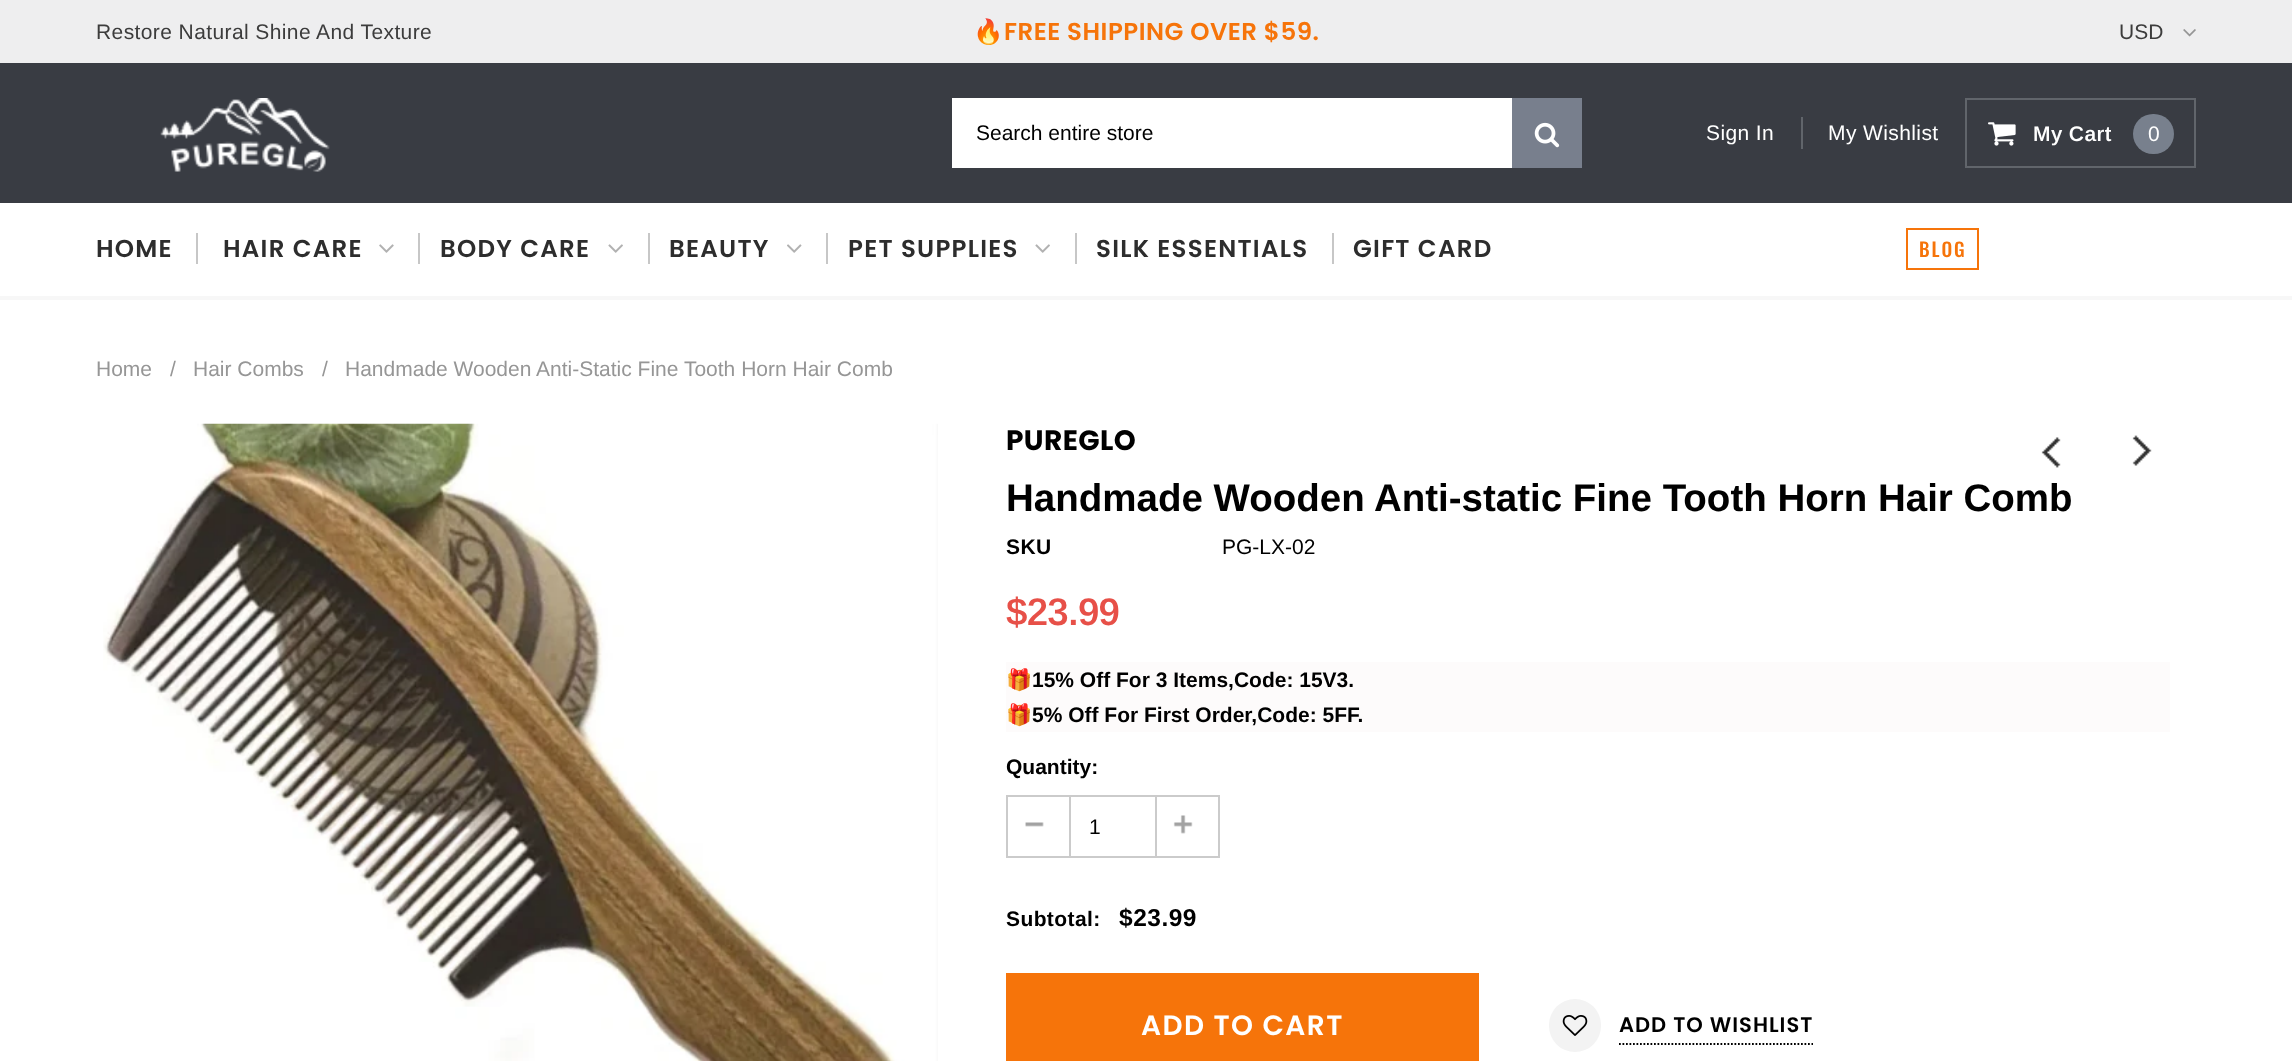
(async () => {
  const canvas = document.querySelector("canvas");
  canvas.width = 2292;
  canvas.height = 1061;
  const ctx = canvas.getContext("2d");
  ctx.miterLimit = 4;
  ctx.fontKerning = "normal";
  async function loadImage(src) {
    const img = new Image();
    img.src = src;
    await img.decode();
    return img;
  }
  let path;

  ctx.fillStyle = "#ffffff";
  ctx.fillRect(0, 0, 2292, 1061);
  ctx.fillStyle = "#393c43";
  ctx.fillRect(0, 63, 2292, 140);
  ctx.fillStyle = "#eeeeef";
  ctx.fillRect(0, 0, 2292, 63);
  ctx.drawImage(await loadImage("img/1.png"), 2183, 29, 13, 8);
  ctx.drawImage(await loadImage("img/2.png"), 160, 98, 170, 74);
  ctx.fillStyle = "#ffffff";
  ctx.fillRect(952, 98, 560, 70);
  ctx.fillStyle = "#787f8d";
  ctx.fillRect(1512, 98, 70, 70);
  ctx.drawImage(await loadImage("img/3.png"), 1534, 122, 26, 26);
  ctx.fillStyle = "#61656b";
  ctx.fillRect(1801, 117, 2, 32);
  ctx.strokeStyle = "#61656b";
  ctx.lineWidth = 2;
  ctx.strokeRect(1966, 99, 229, 68);
  ctx.drawImage(await loadImage("img/4.png"), 1988, 122, 28, 24);
  ctx.fillStyle = "#78808d";
  ctx.beginPath();
  ctx.roundRect(2133, 114, 41, 40, 20);
  ctx.fill();
  ctx.fillStyle = "#f7f7f7";
  ctx.fillRect(0, 296, 2292, 4);
  ctx.fillStyle = "#c7c7c7";
  ctx.fillRect(196, 233, 2, 31);
  ctx.drawImage(await loadImage("img/5.png"), 379, 244, 15, 9);
  ctx.fillRect(418, 233, 2, 31);
  ctx.drawImage(await loadImage("img/6.png"), 608, 244, 15, 9);
  ctx.fillRect(648, 233, 2, 31);
  ctx.drawImage(await loadImage("img/7.png"), 787, 244, 15, 9);
  ctx.fillRect(826, 233, 2, 31);
  ctx.drawImage(await loadImage("img/6.png"), 1035, 244, 15, 9);
  ctx.fillRect(1075, 233, 2, 31);
  ctx.fillRect(1332, 233, 2, 31);
  ctx.strokeStyle = "#f6740a";
  ctx.strokeRect(1907, 229, 71, 40);
  ctx.drawImage(await loadImage("img/8.png"), 103, 423, 835, 638);
  ctx.drawImage(await loadImage("img/9.png"), 2041, 437, 20, 31);
  ctx.drawImage(await loadImage("img/10.png"), 2132, 435, 20, 31);
  ctx.fillStyle = "#fdfbfb";
  ctx.fillRect(1006, 662, 1164, 70);
  ctx.drawImage(await loadImage("img/11.png"), 1025, 822, 19, 5);
  for (const [x, y, w, h, color] of [
    [1006, 795, 63, 2, "#cbcbcb"],
    [1006, 856, 63, 2, "#cbcbcb"],
    [1006, 795, 2, 63, "#cbcbcb"],
  ]) {
    ctx.fillStyle = color;
    ctx.fillRect(x, y, w, h);
  }
  ctx.strokeStyle = "#cbcbcb";
  ctx.strokeRect(1070, 796, 86, 61);
  ctx.drawImage(await loadImage("img/12.png"), 1173, 815, 20, 19);
  for (const [x, y, w, h, color] of [
    [1157, 795, 63, 2, "#cbcbcb"],
    [1218, 795, 2, 63, "#cbcbcb"],
    [1157, 856, 63, 2, "#cbcbcb"],
    [1006, 973, 473, 88, "#f6740a"],
  ]) {
    ctx.fillStyle = color;
    ctx.fillRect(x, y, w, h);
  }
  ctx.fillStyle = "#f3f3f3";
  ctx.beginPath();
  ctx.roundRect(1549, 999, 52, 53, 26);
  ctx.fill();
  ctx.drawImage(await loadImage("img/13.png"), 1562, 1015, 26, 21);
  path = new Path2D("M1619 1044H1813");
  ctx.strokeStyle = "#000000";
  ctx.lineWidth = 1.8;
  ctx.setLineDash([1.75, 1.75]);
  ctx.stroke(path);
  ctx.letterSpacing = "0.4px";
  ctx.font = "21px Arimo";
  ctx.fillStyle = "#3c3c3c";
  ctx.fillText("Restore Natural Shine And Texture", 96, 39);
  ctx.letterSpacing = "0.5px";
  ctx.font = "bold 24.5px Noto Color Emoji";
  ctx.fillStyle = "#f6740a";
  ctx.fillText("🔥", 973, 40);
  ctx.font = "600 24.5px Poppins";
  ctx.fillText("FREE SHIPPING OVER $59.", 1004, 40);
  ctx.letterSpacing = "0px";
  ctx.font = "21px Arimo";
  ctx.fillStyle = "#3c3c3c";
  ctx.fillText("USD", 2119, 39);
  ctx.fillStyle = "#000000";
  ctx.fillText("Search entire store", 976, 140);
  ctx.letterSpacing = "0.4px";
  ctx.fillStyle = "#ffffff";
  ctx.fillText("Sign In", 1706, 140);
  ctx.fillText("My Wishlist", 1828, 140);
  ctx.font = "600 21px Arimo";
  ctx.fillText("My Cart", 2033, 141);
  ctx.letterSpacing = "0px";
  ctx.font = "21px Arimo";
  ctx.fillText("0", 2148, 141);
  ctx.letterSpacing = "1.25px";
  ctx.font = "600 24.5px Poppins";
  ctx.fillStyle = "#2d2d2d";
  for (const [text, x, y] of [
    ["HOME", 96, 257],
    ["HAIR CARE", 223, 257],
    ["BODY CARE", 440, 257],
    ["BEAUTY", 669, 257],
    ["PET SUPPLIES", 848, 257],
    ["SILK ESSENTIALS", 1096, 257],
    ["GIFT CARD", 1353, 257],
  ]) {
    ctx.fillText(text, x, y);
  }
  ctx.letterSpacing = "2px";
  ctx.font = "500 19px Oswald";
  ctx.fillStyle = "#f6740a";
  ctx.fillText("BLOG", 1919, 257);
  ctx.letterSpacing = "0px";
  ctx.font = "21px Arimo";
  ctx.fillStyle = "#969696";
  for (const [text, x, y] of [
    ["Home", 96, 376],
    ["/", 170, 376],
    ["Hair Combs", 193, 376],
    ["/", 322, 376],
    ["Handmade Wooden Anti-Static Fine Tooth Horn Hair Comb", 345, 376],
  ]) {
    ctx.fillText(text, x, y);
  }
  ctx.letterSpacing = "0.4px";
  ctx.font = "bold 28px Poppins";
  ctx.fillStyle = "#000000";
  ctx.fillText("PUREGLO", 1006, 450);
  ctx.letterSpacing = "0px";
  ctx.font = "bold 38.5px Arimo";
  ctx.fillText("Handmade Wooden Anti-static Fine Tooth Horn Hair Comb", 1006, 511);
  ctx.letterSpacing = "0.4px";
  ctx.font = "bold 21px Arimo";
  ctx.fillText("SKU", 1006, 554);
  ctx.letterSpacing = "0px";
  ctx.font = "21px Arimo";
  ctx.fillText("PG-LX-02", 1222, 554);
  ctx.letterSpacing = "-0.75px";
  ctx.font = "600 38.5px Arimo";
  ctx.fillStyle = "#e75048";
  ctx.fillText("$23.99", 1006, 625);
  ctx.letterSpacing = "0px";
  ctx.font = "bold 21px Noto Color Emoji";
  ctx.fillStyle = "#000000";
  ctx.fillText("🎁", 1006, 687);
  ctx.font = "bold 21px Arimo";
  ctx.fillText("15% Off For 3 Items,Code: 15V3.", 1032, 687);
  ctx.font = "bold 21px Noto Color Emoji";
  ctx.fillText("🎁", 1006, 722);
  ctx.font = "bold 21px Arimo";
  ctx.fillText("5% Off For First Order,Code: 5FF.", 1032, 722);
  ctx.fillText("Quantity:", 1006, 774);
  ctx.font = "21px Arimo";
  ctx.fillText("1", 1089, 834);
  ctx.letterSpacing = "0.4px";
  ctx.font = "bold 21px Arimo";
  ctx.fillText("Subtotal:", 1006, 926);
  ctx.letterSpacing = "0.5px";
  ctx.font = "bold 24.5px Arimo";
  ctx.fillText("$23.99", 1119, 926);
  ctx.letterSpacing = "1.4px";
  ctx.font = "600 28px Poppins";
  ctx.fillStyle = "#ffffff";
  ctx.fillText("ADD TO CART", 1141, 1035);
  ctx.letterSpacing = "1px";
  ctx.font = "600 21px Poppins";
  ctx.fillStyle = "#000000";
  ctx.fillText("ADD TO WISHLIST", 1619, 1032);
})();
